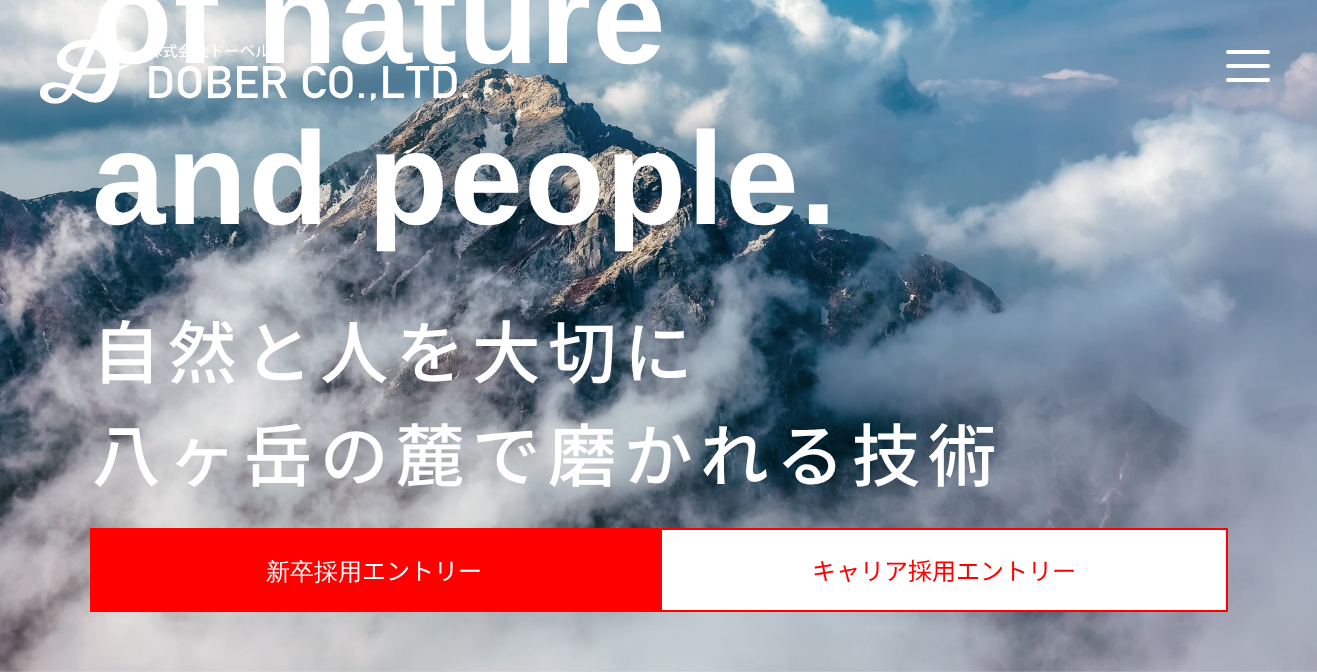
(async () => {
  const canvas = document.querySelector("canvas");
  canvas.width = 1317;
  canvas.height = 672;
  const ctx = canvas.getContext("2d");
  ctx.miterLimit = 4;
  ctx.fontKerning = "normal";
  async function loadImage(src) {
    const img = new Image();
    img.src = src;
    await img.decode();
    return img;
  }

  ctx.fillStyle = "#ffffff";
  ctx.fillRect(0, 0, 1317, 672);
  ctx.drawImage(await loadImage("img/1.png"), 0, 0, 1317, 672);
  ctx.beginPath();
  ctx.roundRect(1226, 50, 44, 4, 2);
  ctx.fill();
  ctx.beginPath();
  ctx.roundRect(1226, 64, 44, 4, 2);
  ctx.fill();
  ctx.beginPath();
  ctx.roundRect(1226, 78, 44, 4, 2);
  ctx.fill();
  ctx.fillStyle = "#ff0000";
  ctx.fillRect(90, 528, 570, 84);
  ctx.fillStyle = "#ffffff";
  ctx.beginPath();
  ctx.rect(661, 529, 566, 82);
  ctx.fill();
  ctx.strokeStyle = "#ff0000";
  ctx.lineWidth = 2;
  ctx.stroke();
  ctx.letterSpacing = "1.25px";
  ctx.font = "bold 131.75px Liberation Sans";
  ctx.fillText("of nature", 92, 63);
  ctx.fillText("and people.", 92, 224);
  ctx.letterSpacing = "7.5px";
  ctx.font = "500 68.5px Noto Sans JP";
  ctx.fillText("自然と人を大切に", 92, 378);
  ctx.fillText("八ヶ岳の麓で磨かれる技術", 92, 481);
  ctx.drawImage(await loadImage("img/2.png"), 40, 30, 428, 74);
  ctx.letterSpacing = "0px";
  ctx.font = "500 24px WenQuanYi Zen Hei";
  ctx.fillText("新卒採用", 266, 580);
  ctx.font = "24px Noto Sans JP";
  ctx.fillText("エントリー", 362, 580);
  ctx.fillStyle = "#ff0000";
  ctx.fillText("キャリア採用エントリー", 812, 580);
})();
